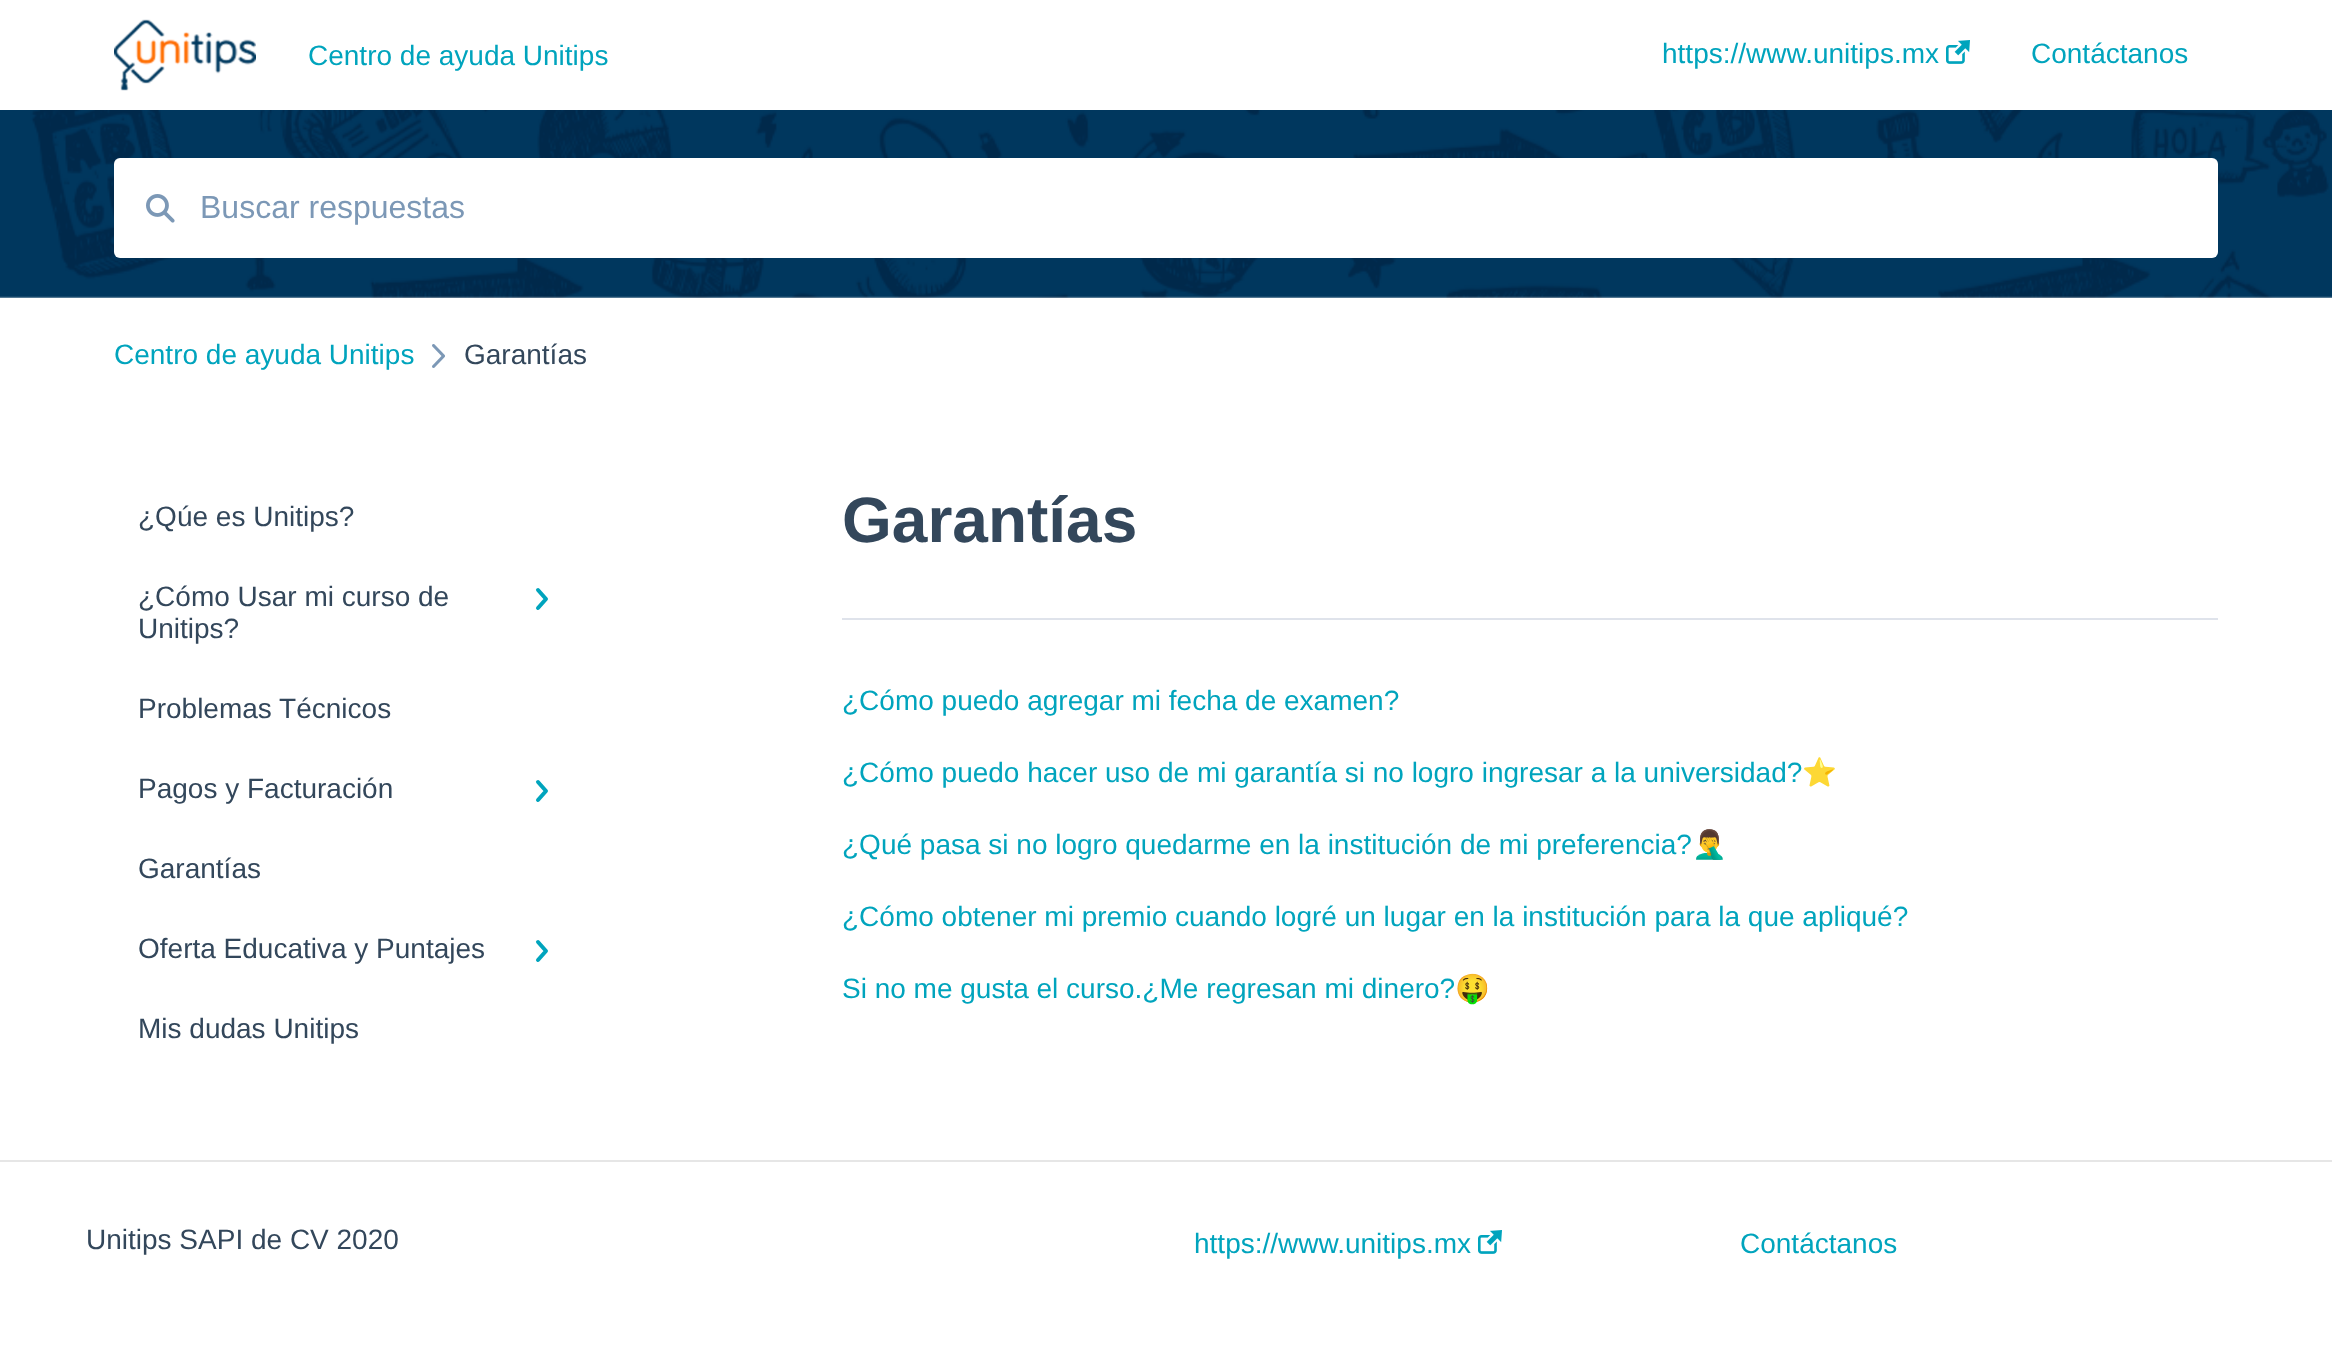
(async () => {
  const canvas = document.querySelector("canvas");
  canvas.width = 2332;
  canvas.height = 1357;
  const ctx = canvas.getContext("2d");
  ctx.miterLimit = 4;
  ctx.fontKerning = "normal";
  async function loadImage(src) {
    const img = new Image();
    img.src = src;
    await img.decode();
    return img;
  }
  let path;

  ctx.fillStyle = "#ffffff";
  ctx.fillRect(0, 0, 2332, 1357);
  ctx.drawImage(await loadImage("img/1.png"), 114, 19, 142, 72);
  ctx.drawImage(await loadImage("img/2.png"), 1946, 40, 24, 24);
  ctx.drawImage(await loadImage("img/3.png"), 0, 110, 2332, 188);
  ctx.beginPath();
  ctx.roundRect(114, 158, 2104, 100, 6);
  ctx.fill();
  ctx.drawImage(await loadImage("img/4.png"), 146, 194, 29, 29);
  ctx.drawImage(await loadImage("img/5.png"), 432, 344, 13, 24);
  path = new Path2D("M538 590L546 599L538 608");
  ctx.strokeStyle = "#00a4bd";
  ctx.lineWidth = 4;
  ctx.lineCap = "round";
  ctx.lineJoin = "round";
  ctx.stroke(path);
  path = new Path2D("M538 782L546 791L538 800");
  ctx.stroke(path);
  path = new Path2D("M538 942L546 951L538 960");
  ctx.stroke(path);
  ctx.fillStyle = "#dfe3eb";
  ctx.fillRect(842, 618, 1376, 2);
  ctx.fillStyle = "#e6e6e6";
  ctx.fillRect(0, 1160, 2332, 2);
  ctx.drawImage(await loadImage("img/2.png"), 1478, 1230, 24, 24);
  ctx.font = "28px Liberation Sans";
  ctx.fillStyle = "#00a4bd";
  for (const [text, x, y] of [
    ["Centro de ayuda Unitips", 308, 65],
    ["https://www.unitips.mx", 1662, 63],
    ["Contáctanos", 2031, 63],
  ]) {
    ctx.fillText(text, x, y);
  }
  ctx.font = "32px Liberation Sans";
  ctx.fillStyle = "#7c98b6";
  ctx.fillText("Buscar respuestas", 200, 218);
  ctx.font = "28px Liberation Sans";
  ctx.fillStyle = "#00a4bd";
  ctx.fillText("Centro de ayuda Unitips", 114, 364);
  ctx.fillStyle = "#33475b";
  for (const [text, x, y] of [
    ["Garantías", 464, 364],
    ["¿Qúe es Unitips?", 138, 526],
    ["¿Cómo Usar mi curso de", 138, 606],
    ["Unitips?", 138, 638],
    ["Problemas Técnicos", 138, 718],
    ["Pagos y Facturación", 138, 798],
    ["Garantías", 138, 878],
    ["Oferta Educativa y Puntajes", 138, 958],
    ["Mis dudas Unitips", 138, 1038],
  ]) {
    ctx.fillText(text, x, y);
  }
  ctx.font = "bold 64px Liberation Sans";
  ctx.fillText("Garantías", 842, 542);
  ctx.font = "28px Liberation Sans";
  ctx.fillStyle = "#00a4bd";
  ctx.fillText("¿Cómo puedo agregar mi fecha de examen?", 842, 710);
  ctx.fillText("¿Cómo puedo hacer uso de mi garantía si no logro ingresar a la universidad?", 842, 782);
  ctx.font = "28px Noto Color Emoji";
  ctx.fillText("⭐", 1802, 782);
  ctx.font = "28px Liberation Sans";
  ctx.fillText("¿Qué pasa si no logro quedarme en la institución de mi preferencia?", 842, 854);
  ctx.font = "28px Noto Color Emoji";
  ctx.fillText("🤦‍♂️", 1692, 854);
  ctx.font = "28px Liberation Sans";
  ctx.fillText("¿Cómo obtener mi premio cuando logré un lugar en la institución para la que apliqué?", 842, 926);
  ctx.fillText("Si no me gusta el curso.¿Me regresan mi dinero?", 842, 998);
  ctx.font = "28px Noto Color Emoji";
  ctx.fillText("🤑", 1455, 998);
  ctx.font = "28px Liberation Sans";
  ctx.fillStyle = "#33475b";
  ctx.fillText("Unitips SAPI de CV 2020", 86, 1249);
  ctx.fillStyle = "#00a4bd";
  ctx.fillText("https://www.unitips.mx", 1194, 1253);
  ctx.fillText("Contáctanos", 1740, 1253);
})();
